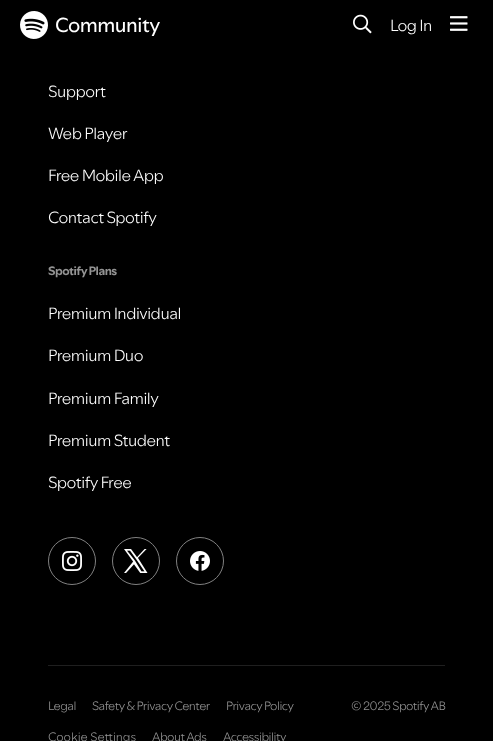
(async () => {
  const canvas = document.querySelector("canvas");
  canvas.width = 493;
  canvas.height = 741;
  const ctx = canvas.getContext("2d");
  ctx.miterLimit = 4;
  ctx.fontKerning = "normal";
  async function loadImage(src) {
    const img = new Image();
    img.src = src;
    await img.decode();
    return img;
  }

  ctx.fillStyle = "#000000";
  ctx.fillRect(0, 0, 493, 741);
  ctx.drawImage(await loadImage("img/1.png"), 20, 11, 28, 28);
  ctx.drawImage(await loadImage("img/2.png"), 353, 14, 19, 20);
  ctx.drawImage(await loadImage("img/3.png"), 450, 16, 18, 15);
  ctx.beginPath();
  ctx.arc(72, 561, 23.5, 0, Math.PI * 2);
  ctx.strokeStyle = "#818181";
  ctx.stroke();
  ctx.drawImage(await loadImage("img/4.png"), 62, 551, 20, 20);
  ctx.beginPath();
  ctx.arc(136, 561, 23.5, 0, Math.PI * 2);
  ctx.stroke();
  ctx.drawImage(await loadImage("img/5.png"), 124, 549, 24, 24);
  ctx.beginPath();
  ctx.arc(200, 561, 23.5, 0, Math.PI * 2);
  ctx.stroke();
  ctx.drawImage(await loadImage("img/6.png"), 190, 551, 20, 20);
  ctx.fillStyle = "#1f1f1f";
  ctx.fillRect(48, 665, 397, 1);
  ctx.letterSpacing = "-0.5px";
  ctx.font = "20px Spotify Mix";
  ctx.fillStyle = "#ffffff";
  ctx.fillText("Community", 55, 32);
  ctx.font = "300 16px Spotify Mix";
  for (const [text, x, y] of [
    ["Log In", 390, 31],
    ["Support", 48, 97],
    ["Web Player", 48, 139],
    ["Free Mobile App", 48, 181],
    ["Contact Spotify", 48, 223],
  ]) {
    ctx.fillText(text, x, y);
  }
  ctx.font = "bold 12px Spotify Mix";
  ctx.fillStyle = "#939393";
  ctx.fillText("Spotify Plans", 48, 275);
  ctx.font = "300 16px Spotify Mix";
  ctx.fillStyle = "#ffffff";
  for (const [text, x, y] of [
    ["Premium Individual", 48, 319],
    ["Premium Duo", 48, 361],
    ["Premium Family", 48, 404],
    ["Premium Student", 48, 446],
    ["Spotify Free", 48, 488],
  ]) {
    ctx.fillText(text, x, y);
  }
  ctx.font = "300 12px Spotify Mix";
  ctx.fillStyle = "#939393";
  for (const [text, x, y] of [
    ["Legal", 48, 710],
    ["Safety & Privacy Center", 92, 710],
    ["Privacy Policy", 226, 710],
  ]) {
    ctx.fillText(text, x, y);
  }
  ctx.letterSpacing = "0px";
  ctx.fillText("Cookie Settings", 48, 741);
  ctx.letterSpacing = "-0.5px";
  for (const [text, x, y] of [
    ["About Ads", 152, 741],
    ["Accessibility", 223, 741],
    ["© 2025 Spotify AB", 351, 710],
  ]) {
    ctx.fillText(text, x, y);
  }
})();
